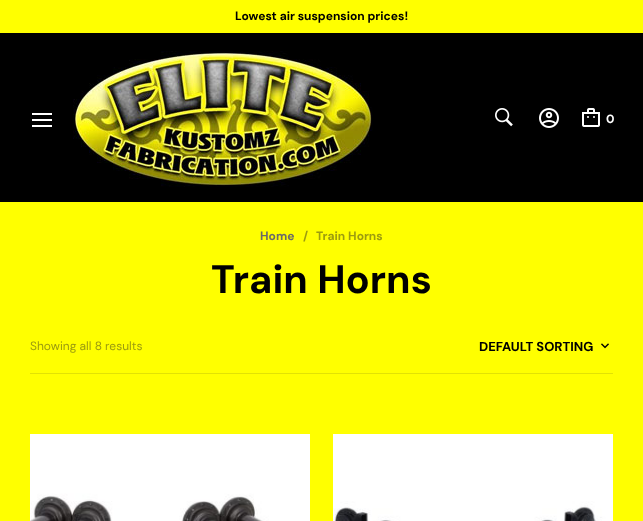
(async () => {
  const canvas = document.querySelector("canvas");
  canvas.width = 643;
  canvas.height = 521;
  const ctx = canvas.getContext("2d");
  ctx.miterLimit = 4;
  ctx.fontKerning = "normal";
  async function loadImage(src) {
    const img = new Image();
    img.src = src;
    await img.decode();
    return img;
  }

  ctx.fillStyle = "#ffff00";
  ctx.fillRect(0, 0, 643, 521);
  ctx.fillStyle = "#000000";
  ctx.fillRect(0, 33, 643, 169);
  ctx.drawImage(await loadImage("img/1.png"), 32, 113, 20, 14);
  ctx.drawImage(await loadImage("img/2.png"), 73, 51, 300, 136);
  ctx.drawImage(await loadImage("img/3.png"), 495, 108, 18, 19);
  ctx.drawImage(await loadImage("img/4.png"), 539, 108, 20, 20);
  ctx.drawImage(await loadImage("img/5.png"), 582, 108, 18, 19);
  ctx.drawImage(await loadImage("img/6.png"), 601, 343, 8, 6);
  ctx.fillStyle = "#e2e204";
  ctx.fillRect(30, 373, 583, 1);
  ctx.drawImage(await loadImage("img/7.png"), 30, 434, 280, 87);
  ctx.drawImage(await loadImage("img/8.png"), 333, 434, 280, 87);
  ctx.font = "bold 12px DM Sans";
  ctx.fillStyle = "#000000";
  ctx.fillText("Lowest air suspension prices!", 235, 20);
  ctx.fillStyle = "#ffffff";
  ctx.fillText("0", 606, 123);
  ctx.fillStyle = "#696969";
  ctx.fillText("Home", 260, 240);
  ctx.fillStyle = "#9c9c0f";
  ctx.fillText("/", 303, 240);
  ctx.fillText("Train Horns", 316, 240);
  ctx.font = "bold 39.75px DM Sans";
  ctx.fillStyle = "#000000";
  ctx.fillText("Train Horns", 211, 293);
  ctx.font = "12px DM Sans";
  ctx.fillStyle = "#9c9c0f";
  ctx.fillText("Showing all 8 results", 30, 350);
  ctx.font = "bold 13px DM Sans";
  ctx.fillStyle = "#000000";
  ctx.fillText("DEFAULT SORTING", 479, 351);
})();
